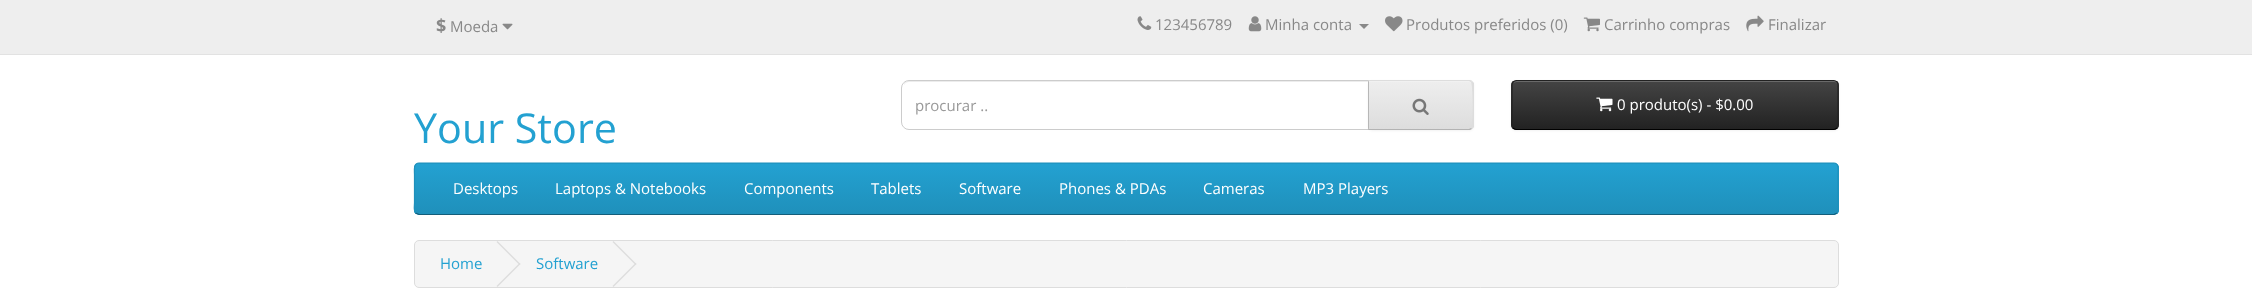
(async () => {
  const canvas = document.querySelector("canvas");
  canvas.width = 2252;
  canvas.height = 306;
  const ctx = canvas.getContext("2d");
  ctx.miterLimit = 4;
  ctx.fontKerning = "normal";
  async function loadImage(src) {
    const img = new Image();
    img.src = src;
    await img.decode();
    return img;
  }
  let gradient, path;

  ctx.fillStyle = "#ffffff";
  ctx.fillRect(0, 0, 2252, 306);
  ctx.fillStyle = "#eeeeee";
  ctx.fillRect(0, 0, 2252, 54);
  ctx.fillStyle = "#e2e2e2";
  ctx.fillRect(0, 54, 2252, 1);
  ctx.drawImage(await loadImage("img/1.png"), 502, 23, 11, 7);
  ctx.drawImage(await loadImage("img/2.png"), 1137, 16, 15, 14);
  ctx.drawImage(await loadImage("img/3.png"), 1248, 16, 14, 16);
  ctx.fillStyle = "#888888";
  path = new Path2D("M1359 24H1369L1364 29Z");
  ctx.fill(path);
  ctx.drawImage(await loadImage("img/4.png"), 1385, 16, 18, 16);
  ctx.drawImage(await loadImage("img/5.png"), 1583, 17, 17, 15);
  ctx.drawImage(await loadImage("img/6.png"), 1746, 15, 18, 17);
  ctx.fillStyle = "#ececec";
  path = new Path2D("M909 82H1368V81H909C907 81 904 82 904 85C905 83 907 82 909 82Z");
  ctx.fill(path);
  ctx.beginPath();
  ctx.roundRect(901.5, 80.5, 467, 49, [7.5, 0, 0, 7.5]);
  ctx.strokeStyle = "#cccccc";
  ctx.stroke();
  ctx.fillStyle = "rgba(0, 0, 0, 0.05)";
  ctx.filter = "blur(1px)";
  ctx.beginPath();
  ctx.roundRect(1368, 81, 106, 50, 5);
  ctx.fill();
  ctx.filter = "none";
  ctx.save();
  ctx.beginPath();
  ctx.roundRect(1368, 80, 106, 50, [0, 5, 5, 0]);
  ctx.clip();
  gradient = ctx.createLinearGradient(1421, 81, 1421, 129);
  gradient.addColorStop(0, "#eeeeee");
  gradient.addColorStop(1, "#dddddd");
  ctx.fillStyle = gradient;
  ctx.fillRect(1368, 81, 106, 48);
  ctx.restore();
  ctx.fillStyle = "rgba(255, 255, 255, 0.2)";
  path = new Path2D("M1369 82H1469C1474 82 1472 91 1472 93V128C1472 127 1473 126 1473 125V85C1473 83 1471 81 1469 81H1369Z");
  ctx.fill(path);
  ctx.fillStyle = "#dddddd";
  path = new Path2D("M1368 80L1369 82V81H1469L1471 82L1472 81C1472 80 1470 80 1469 80Z");
  ctx.fill(path);
  path = new Path2D("M1474 127L1472 129L1471 128C1473 125 1473 85 1471 82L1472 81L1474 83Z");
  ctx.fill(path);
  ctx.fillStyle = "#b3b3b3";
  path = new Path2D("M1368 130H1470L1472 129L1471 128L1469 129H1369V128Z");
  ctx.fill(path);
  ctx.fillStyle = "#b7b7b7";
  path = new Path2D("M1368 80V130L1369 128V82Z");
  ctx.fill(path);
  ctx.drawImage(await loadImage("img/7.png"), 1412, 98, 17, 17);
  ctx.fillStyle = "rgba(0, 0, 0, 0.05)";
  ctx.filter = "blur(1px)";
  ctx.beginPath();
  ctx.roundRect(1511, 81, 328, 50, 5);
  ctx.fill();
  ctx.filter = "none";
  ctx.save();
  ctx.beginPath();
  ctx.roundRect(1511, 80, 328, 50, 5);
  ctx.clip();
  gradient = ctx.createLinearGradient(1675, 81, 1675, 129);
  gradient.addColorStop(0, "#444444");
  gradient.addColorStop(1, "#222222");
  ctx.fillStyle = gradient;
  ctx.fillRect(1511, 81, 328, 48);
  ctx.restore();
  ctx.fillStyle = "#696969";
  path = new Path2D("M1516 82H1834C1836 82 1838 84 1838 86V85C1838 83 1836 81 1834 81H1517C1516 81 1514 82 1514 83Z");
  ctx.fill(path);
  path = new Path2D("M1837 128C1836 129 1835 129.5 1834 129.5H1516C1515 129.5 1514 129 1513 128");
  ctx.strokeStyle = "#000000";
  ctx.lineWidth = 1.2;
  ctx.stroke(path);
  path = new Path2D("M1513 128C1512.5 127.5 1512 126 1512 125V85C1512 84 1512.5 82.5 1513 82C1514 81 1515 80.5 1516 80.5H1834C1835 80.5 1836 81 1837 82C1837.5 82.5 1838 84 1838 85V125C1838 126 1837.5 127.5 1837 128");
  ctx.strokeStyle = "#222222";
  ctx.stroke(path);
  ctx.drawImage(await loadImage("img/8.png"), 1596, 97, 17, 15);
  ctx.fillStyle = "#229ac8";
  ctx.beginPath();
  ctx.roundRect(414, 163, 1425, 52, 5);
  ctx.fill();
  ctx.save();
  ctx.beginPath();
  ctx.roundRect(414, 163, 1425, 52, 5);
  ctx.clip();
  gradient = ctx.createLinearGradient(1126, 164, 1126, 214);
  gradient.addColorStop(0, "#23a1d1");
  gradient.addColorStop(1, "#1f90bb");
  ctx.fillStyle = gradient;
  ctx.fillRect(414, 164, 1425, 50);
  ctx.restore();
  path = new Path2D("M1837 213L1834 214.5H419L415.5 213");
  ctx.strokeStyle = "#145e7a";
  ctx.stroke(path);
  path = new Path2D("M415.5 213C413.5 210.5 414.5 205 414.5 203V174.5C414.5 171.5 413 163 419 163H1834C1839.5 163 1838 171.5 1838 174.5V203C1838 205 1839 210.5 1837 213");
  ctx.strokeStyle = "#1f90bb";
  ctx.stroke(path);
  ctx.fillStyle = "#f5f5f5";
  ctx.beginPath();
  ctx.roundRect(414.5, 240.5, 1424, 47, 4.5);
  ctx.fill();
  ctx.strokeStyle = "#dddddd";
  ctx.lineWidth = 1;
  ctx.stroke();
  ctx.fillStyle = "#dddddd";
  path = new Path2D("M496.5 242L497.5 241L520.5 264L519.5 265Z");
  ctx.fill(path);
  path = new Path2D("M496.5 286L519.5 263L520.5 264L497.5 287Z");
  ctx.fill(path);
  path = new Path2D("M612.5 242L613.5 241L636.5 264L635.5 265Z");
  ctx.fill(path);
  path = new Path2D("M612.5 286L635.5 263L636.5 264L613.5 287Z");
  ctx.fill(path);
  ctx.font = "bold 18px Open Sans";
  ctx.fillStyle = "#888888";
  ctx.fillText("$", 436, 32);
  ctx.font = "15px Open Sans";
  for (const [text, x, y] of [
    ["Moeda", 450, 32],
    ["123456789", 1155, 30],
    ["Minha conta", 1265, 30],
    ["Produtos preferidos (0)", 1406, 30],
    ["Carrinho compras", 1604, 30],
    ["Finalizar", 1768, 30],
  ]) {
    ctx.fillText(text, x, y);
  }
  ctx.fillStyle = "#999999";
  ctx.fillText("procurar ..", 915, 111);
  ctx.fillStyle = "#ffffff";
  ctx.fillText("0 produto(s) - $0.00", 1617, 110);
  ctx.font = "41.25px Open Sans";
  ctx.fillStyle = "#23a1d1";
  ctx.fillText("Your Store", 414, 143);
  ctx.font = "15px Open Sans";
  ctx.fillStyle = "#ffffff";
  for (const [text, x, y] of [
    ["Desktops", 453, 194],
    ["Laptops & Notebooks", 555, 194],
    ["Components", 744, 194],
    ["Tablets", 871, 194],
    ["Software", 959, 194],
    ["Phones & PDAs", 1059, 194],
    ["Cameras", 1203, 194],
    ["MP3 Players", 1303, 194],
  ]) {
    ctx.fillText(text, x, y);
  }
  ctx.fillStyle = "#23a1d1";
  ctx.fillText("Home", 440, 269);
  ctx.fillText("Software", 536, 269);
})();
